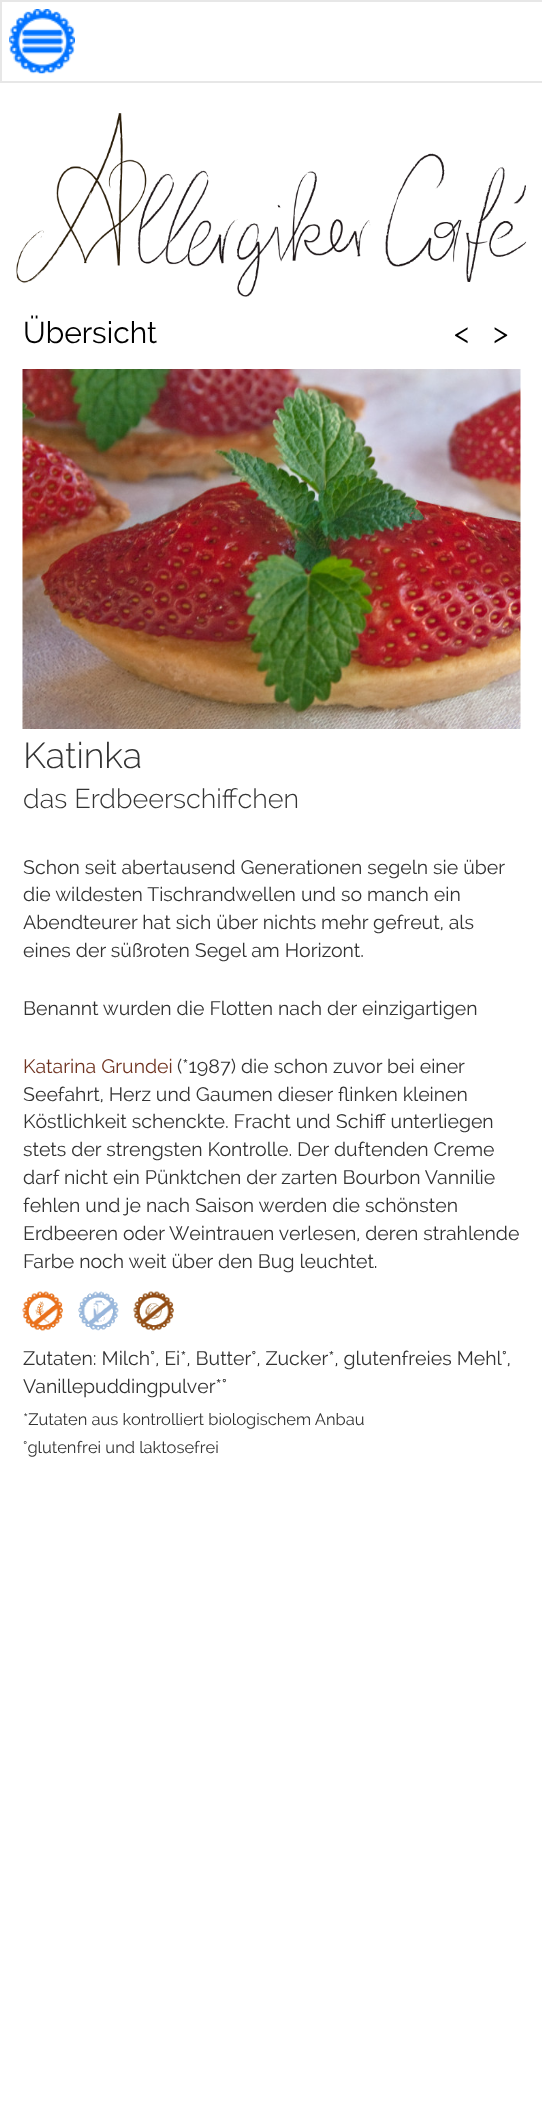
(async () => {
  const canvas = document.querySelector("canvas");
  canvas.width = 542;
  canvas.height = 2110;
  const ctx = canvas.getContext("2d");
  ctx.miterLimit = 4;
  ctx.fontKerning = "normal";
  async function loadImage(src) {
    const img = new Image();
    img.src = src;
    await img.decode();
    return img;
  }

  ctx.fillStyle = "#ffffff";
  ctx.fillRect(0, 0, 542, 2110);
  ctx.strokeStyle = "#e7e7e7";
  ctx.lineWidth = 2;
  ctx.strokeRect(1, 1, 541, 81);
  ctx.fillRect(541, 2, 1, 79);
  ctx.drawImage(await loadImage("img/1.png"), 9, 9, 66, 65);
  ctx.drawImage(await loadImage("img/2.png"), 16, 113, 511, 184);
  ctx.drawImage(await loadImage("img/3.png"), 22, 369, 499, 360);
  ctx.drawImage(await loadImage("img/4.png"), 22, 1291, 41, 40);
  ctx.drawImage(await loadImage("img/5.png"), 78, 1291, 41, 40);
  ctx.drawImage(await loadImage("img/6.png"), 133, 1291, 41, 40);
  ctx.font = "30px Raleway";
  ctx.fillStyle = "#000000";
  for (const [text, x, y] of [
    ["Übersicht", 23, 343],
    ["<", 454, 343],
    [">", 493, 343],
  ]) {
    ctx.fillText(text, x, y);
  }
  ctx.font = "300 36px Raleway";
  ctx.fillStyle = "#333333";
  ctx.fillText("Katinka", 23, 768);
  ctx.font = "300 27px Raleway";
  ctx.fillText("das Erdbeerschiffchen", 23, 808);
  ctx.font = "19.5px Raleway";
  for (const [text, x, y] of [
    ["Schon seit abertausend Generationen segeln sie über", 23, 874],
    ["die wildesten Tischrandwellen und so manch ein", 23, 901],
    ["Abendteurer hat sich über nichts mehr gefreut, als", 23, 929],
    ["eines der süßroten Segel am Horizont.", 23, 957],
    ["Benannt wurden die Flotten nach der einzigartigen", 23, 1015],
  ]) {
    ctx.fillText(text, x, y);
  }
  ctx.fillStyle = "#703421";
  ctx.fillText("Katarina Grundei", 23, 1073);
  ctx.fillStyle = "#333333";
  for (const [text, x, y] of [
    ["(*1987) die schon zuvor bei einer", 177, 1073],
    ["Seefahrt, Herz und Gaumen dieser flinken kleinen", 23, 1101],
    ["Köstlichkeit schenckte. Fracht und Schiff unterliegen", 23, 1128],
    ["stets der strengsten Kontrolle. Der duftenden Creme", 23, 1156],
    ["darf nicht ein Pünktchen der zarten Bourbon Vannilie", 23, 1184],
    ["fehlen und je nach Saison werden die schönsten", 23, 1212],
    ["Erdbeeren oder Weintrauen verlesen, deren strahlende", 23, 1240],
    ["Farbe noch weit über den Bug leuchtet.", 23, 1268],
    ["Zutaten: Milch°, Ei*, Butter°, Zucker*, glutenfreies Mehl°,", 23, 1365],
    ["Vanillepuddingpulver*°", 23, 1393],
  ]) {
    ctx.fillText(text, x, y);
  }
  ctx.font = "16.5px Raleway";
  ctx.fillText("*Zutaten aus kontrolliert biologischem Anbau", 23, 1425);
  ctx.fillText("°glutenfrei und laktosefrei", 23, 1453);
})();
